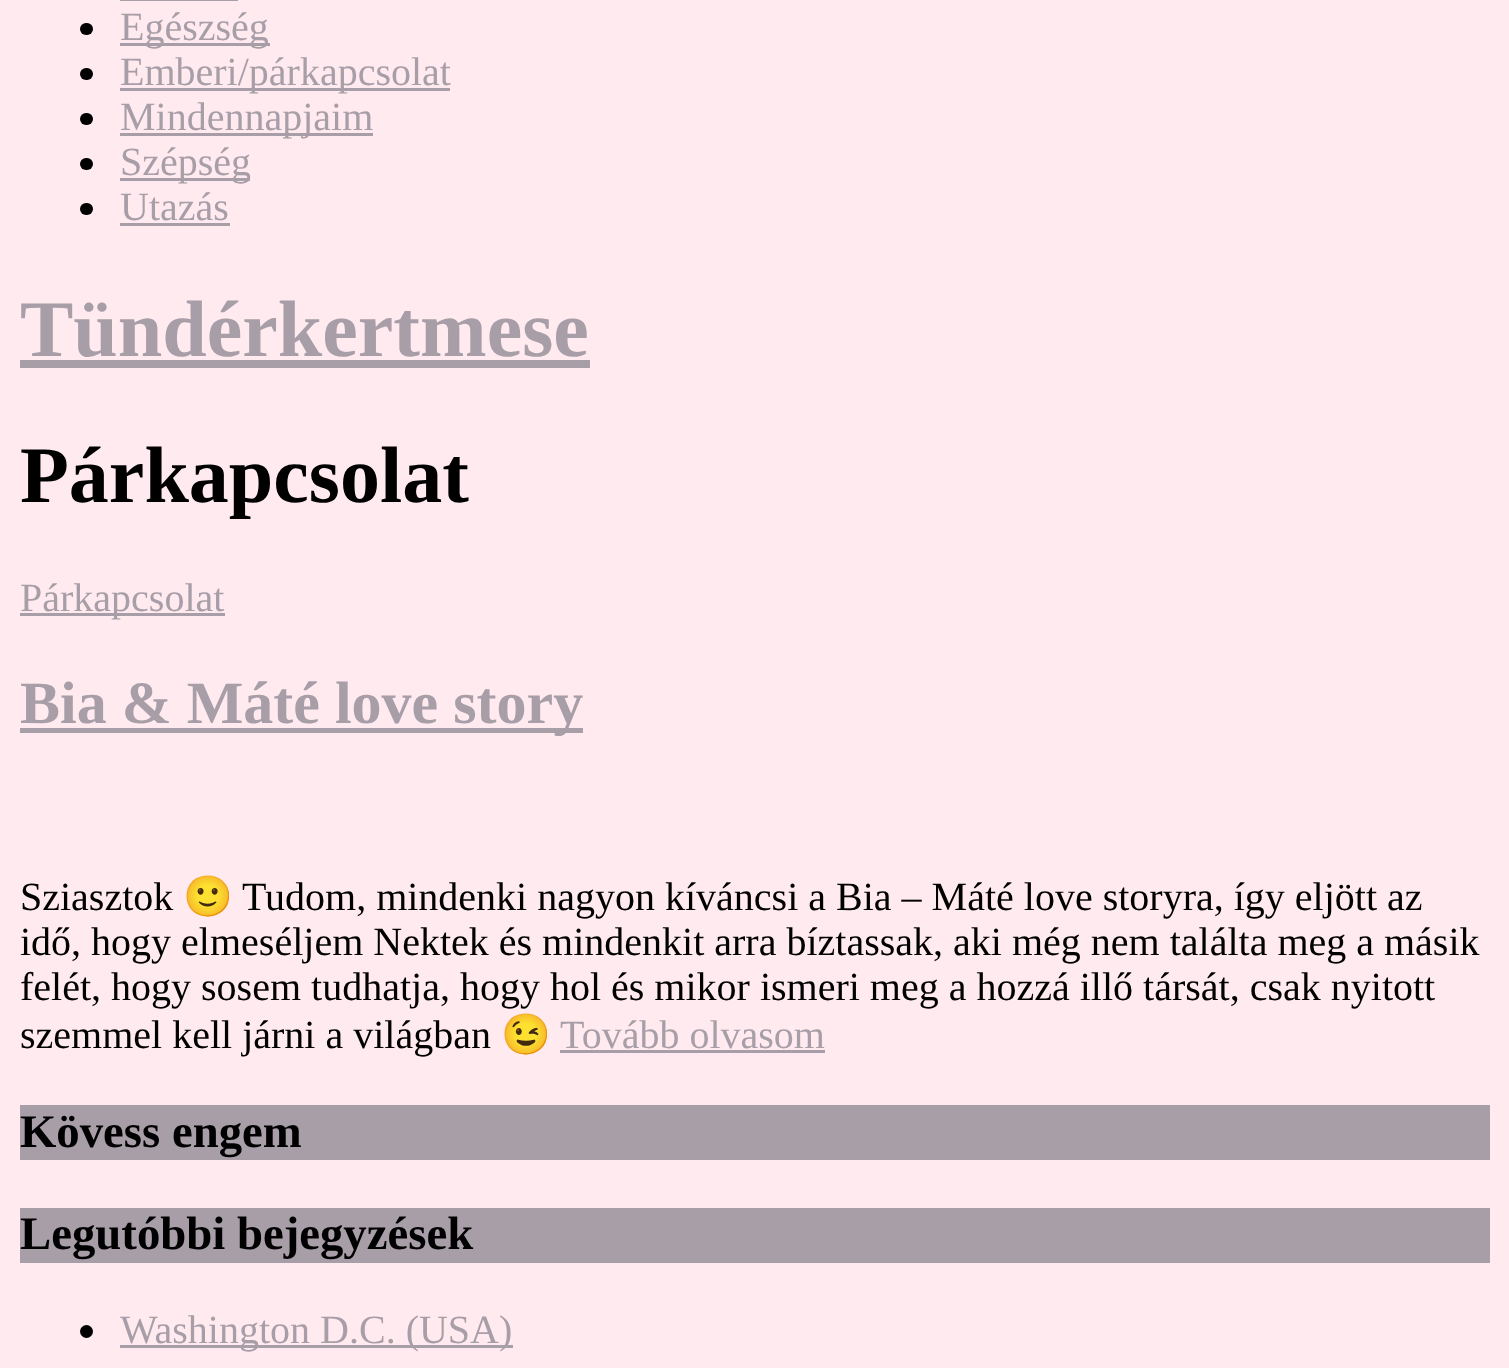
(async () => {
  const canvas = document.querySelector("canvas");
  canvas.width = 1509;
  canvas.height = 1368;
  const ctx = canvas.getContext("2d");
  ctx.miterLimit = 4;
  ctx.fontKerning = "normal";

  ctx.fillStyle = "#ffeaef";
  ctx.fillRect(0, 0, 1509, 1368);
  ctx.fillStyle = "#a89ea8";
  ctx.fillRect(120, 0, 118, 1);
  ctx.fillStyle = "#000000";
  ctx.beginPath();
  ctx.roundRect(80, 23, 13, 12, 6);
  ctx.fill();
  ctx.fillStyle = "#a89ea8";
  ctx.fillRect(120, 43, 150, 3);
  ctx.fillStyle = "#000000";
  ctx.beginPath();
  ctx.roundRect(80, 68, 13, 12, 6);
  ctx.fill();
  ctx.fillStyle = "#a89ea8";
  ctx.fillRect(120, 88, 330, 3);
  ctx.fillStyle = "#000000";
  ctx.beginPath();
  ctx.roundRect(80, 113, 13, 12, 6);
  ctx.fill();
  ctx.fillStyle = "#a89ea8";
  ctx.fillRect(120, 133, 253, 3);
  ctx.fillStyle = "#000000";
  ctx.beginPath();
  ctx.roundRect(80, 158, 13, 12, 6);
  ctx.fill();
  ctx.fillStyle = "#a89ea8";
  ctx.fillRect(120, 178, 130, 3);
  ctx.fillStyle = "#000000";
  ctx.beginPath();
  ctx.roundRect(80, 203, 13, 12, 6);
  ctx.fill();
  for (const [x, y, w, h, color] of [
    [120, 223, 110, 3, "#a89ea8"],
    [20, 360, 570, 8, "#a89ea8"],
    [20, 613, 205, 3, "#a89ea8"],
    [20, 728, 563, 5, "#a89ea8"],
    [560, 1050, 265, 3, "#a89ea8"],
    [20, 1105, 1470, 55, "#a89ea8"],
    [20, 1208, 1470, 55, "#a89ea8"],
  ]) {
    ctx.fillStyle = color;
    ctx.fillRect(x, y, w, h);
  }
  ctx.fillStyle = "#000000";
  ctx.beginPath();
  ctx.arc(86.5, 1331.5, 6.5, 0, Math.PI * 2);
  ctx.fill();
  ctx.fillStyle = "#a89ea8";
  ctx.fillRect(120, 1345, 393, 3);
  ctx.font = "40px Liberation Serif";
  for (const [text, x, y] of [
    ["Egészség", 120, 40],
    ["Emberi/párkapcsolat", 120, 85],
    ["Mindennapjaim", 120, 130],
    ["Szépség", 120, 175],
    ["Utazás", 120, 220],
  ]) {
    ctx.fillText(text, x, y);
  }
  ctx.font = "bold 80px Liberation Serif";
  ctx.fillText("Tündérkertmese", 20, 356);
  ctx.fillStyle = "#000000";
  ctx.fillText("Párkapcsolat", 20, 502);
  ctx.font = "40px Liberation Serif";
  ctx.fillStyle = "#a89ea8";
  ctx.fillText("Párkapcsolat", 20, 611);
  ctx.font = "bold 60px Liberation Serif";
  ctx.fillText("Bia & Máté love story", 20, 723);
  ctx.font = "40px Liberation Serif";
  ctx.fillStyle = "#000000";
  ctx.fillText("Sziasztok", 20, 910);
  ctx.font = "40px Noto Color Emoji";
  ctx.fillText("🙂", 183, 910);
  ctx.font = "40px Liberation Serif";
  for (const [text, x, y] of [
    ["Tudom, mindenki nagyon kíváncsi a Bia – Máté love storyra, így eljött az", 242, 910],
    ["idő, hogy elmeséljem Nektek és mindenkit arra bíztassak, aki még nem találta meg a másik", 20, 955],
    ["felét, hogy sosem tudhatja, hogy hol és mikor ismeri meg a hozzá illő társát, csak nyitott", 20, 1000],
    ["szemmel kell járni a világban", 20, 1048],
  ]) {
    ctx.fillText(text, x, y);
  }
  ctx.font = "40px Noto Color Emoji";
  ctx.fillText("😉", 501, 1048);
  ctx.font = "40px Liberation Serif";
  ctx.fillStyle = "#a89ea8";
  ctx.fillText("Tovább olvasom", 560, 1048);
  ctx.font = "bold 46.75px Liberation Serif";
  ctx.fillStyle = "#000000";
  ctx.fillText("Kövess engem", 20, 1147);
  ctx.fillText("Legutóbbi bejegyzések", 20, 1249);
  ctx.font = "40px Liberation Serif";
  ctx.fillStyle = "#a89ea8";
  ctx.fillText("Washington D.C. (USA)", 120, 1343);
})();
